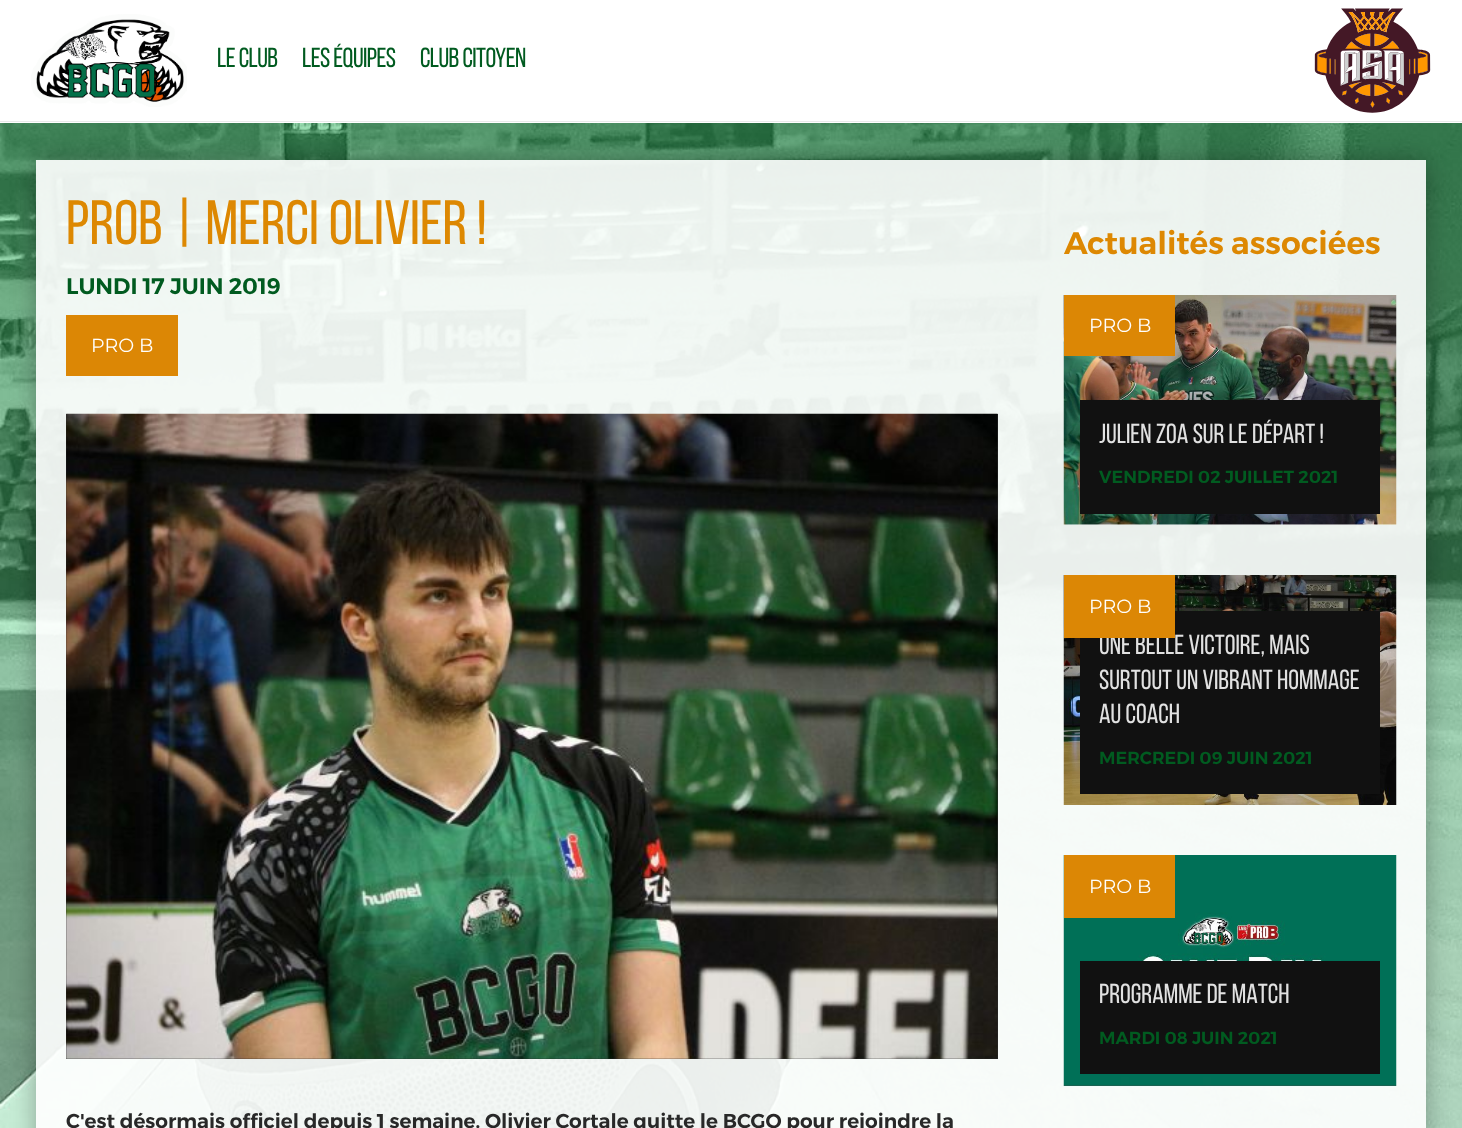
(async () => {
  const canvas = document.querySelector("canvas");
  canvas.width = 1462;
  canvas.height = 1128;
  const ctx = canvas.getContext("2d");
  ctx.miterLimit = 4;
  ctx.fontKerning = "normal";
  async function loadImage(src) {
    const img = new Image();
    img.src = src;
    await img.decode();
    return img;
  }
  let path;

  ctx.fillStyle = "#ffffff";
  ctx.fillRect(0, 0, 1462, 1128);
  ctx.fillStyle = "#eaeaea";
  ctx.fillRect(0, 121, 1462, 1);
  ctx.drawImage(await loadImage("img/1.png"), 31, 14, 156, 93);
  ctx.drawImage(await loadImage("img/2.png"), 1314, 8, 117, 105);
  ctx.drawImage(await loadImage("img/3.png"), 0, 123, 1462, 1005);
  ctx.save();
  path = new Path2D("M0 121H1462V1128H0ZM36 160H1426V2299H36Z");
  ctx.clip(path, "evenodd");
  ctx.fillStyle = "rgba(0, 0, 0, 0.3)";
  ctx.filter = "blur(12.5px)";
  ctx.beginPath();
  ctx.rect(36, 160, 1390, 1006);
  ctx.fill();
  ctx.filter = "none";
  ctx.restore();
  for (const [x, y, w, h, color] of [
    [36, 160, 1390, 968, "rgba(255, 255, 255, 0.9)"],
    [66, 315, 112, 61, "#dc8705"],
    [66, 414, 932, 645, "#282828"],
  ]) {
    ctx.fillStyle = color;
    ctx.fillRect(x, y, w, h);
  }
  ctx.drawImage(await loadImage("img/4.png"), 66, 413, 932, 646);
  ctx.drawImage(await loadImage("img/5.png"), 1063, 295, 334, 230);
  ctx.fillStyle = "#dc8705";
  ctx.fillRect(1064, 295, 111, 61);
  ctx.fillStyle = "#111111";
  ctx.fillRect(1080, 400, 300, 114);
  ctx.drawImage(await loadImage("img/6.png"), 1063, 575, 334, 230);
  ctx.fillRect(1080, 611, 300, 183);
  ctx.drawImage(await loadImage("img/7.png"), 1063, 855, 334, 232);
  ctx.fillStyle = "#dc8705";
  ctx.fillRect(1064, 855, 111, 63);
  ctx.fillStyle = "#111111";
  ctx.fillRect(1080, 961, 300, 113);
  ctx.letterSpacing = "-0.6px";
  ctx.font = "27.5px Bebas Neue";
  ctx.fillStyle = "#015b20";
  for (const [text, x, y] of [
    ["LE CLUB", 217, 67],
    ["LES ÉQUIPES", 302, 67],
    ["CLUB CITOYEN", 420, 67],
  ]) {
    ctx.fillText(text, x, y);
  }
  ctx.letterSpacing = "0px";
  ctx.font = "62.5px Bebas Neue";
  ctx.fillStyle = "#dd8802";
  ctx.fillText("PROB | MERCI OLIVIER !", 66, 244);
  ctx.font = "600 22.5px Montserrat";
  ctx.fillStyle = "#015b20";
  ctx.fillText("LUNDI 17 JUIN 2019", 66, 294);
  ctx.font = "19px Montserrat";
  ctx.fillStyle = "#ffffff";
  ctx.fillText("PRO B", 91, 352);
  ctx.font = "600 20px Montserrat";
  ctx.fillStyle = "#282828";
  ctx.fillText("C'est désormais officiel depuis 1 semaine. Olivier Cortale quitte le BCGO pour rejoindre la", 66, 1128);
  ctx.font = "600 31.25px Montserrat";
  ctx.fillStyle = "#dd8802";
  ctx.fillText("Actualités associées", 1064, 254);
  ctx.font = "19px Montserrat";
  ctx.fillStyle = "#ffffff";
  ctx.fillText("PRO B", 1089, 332);
  ctx.font = "27.5px Bebas Neue";
  ctx.fillStyle = "#e1e1e1";
  ctx.fillText("JULIEN ZOA SUR LE DÉPART !", 1099, 443);
  ctx.font = "600 17.5px Montserrat";
  ctx.fillStyle = "#015b20";
  ctx.fillText("VENDREDI 02 JUILLET 2021", 1099, 483);
  ctx.font = "27.5px Bebas Neue";
  ctx.fillStyle = "#e1e1e1";
  ctx.fillText("UNE BELLE VICTOIRE, MAIS", 1099, 654);
  ctx.fillStyle = "#dc8705";
  ctx.fillRect(1064, 575, 111, 63);
  ctx.font = "19px Montserrat";
  ctx.fillStyle = "#ffffff";
  ctx.fillText("PRO B", 1089, 613);
  ctx.font = "27.5px Bebas Neue";
  ctx.fillStyle = "#e1e1e1";
  ctx.fillText("SURTOUT UN VIBRANT HOMMAGE", 1099, 689);
  ctx.fillText("AU COACH", 1099, 723);
  ctx.font = "600 17.5px Montserrat";
  ctx.fillStyle = "#015b20";
  ctx.fillText("MERCREDI 09 JUIN 2021", 1099, 764);
  ctx.font = "19px Montserrat";
  ctx.fillStyle = "#ffffff";
  ctx.fillText("PRO B", 1089, 893);
  ctx.font = "27.5px Bebas Neue";
  ctx.fillStyle = "#e1e1e1";
  ctx.fillText("PROGRAMME DE MATCH", 1099, 1003);
  ctx.font = "600 17.5px Montserrat";
  ctx.fillStyle = "#015b20";
  ctx.fillText("MARDI 08 JUIN 2021", 1099, 1044);
})();
